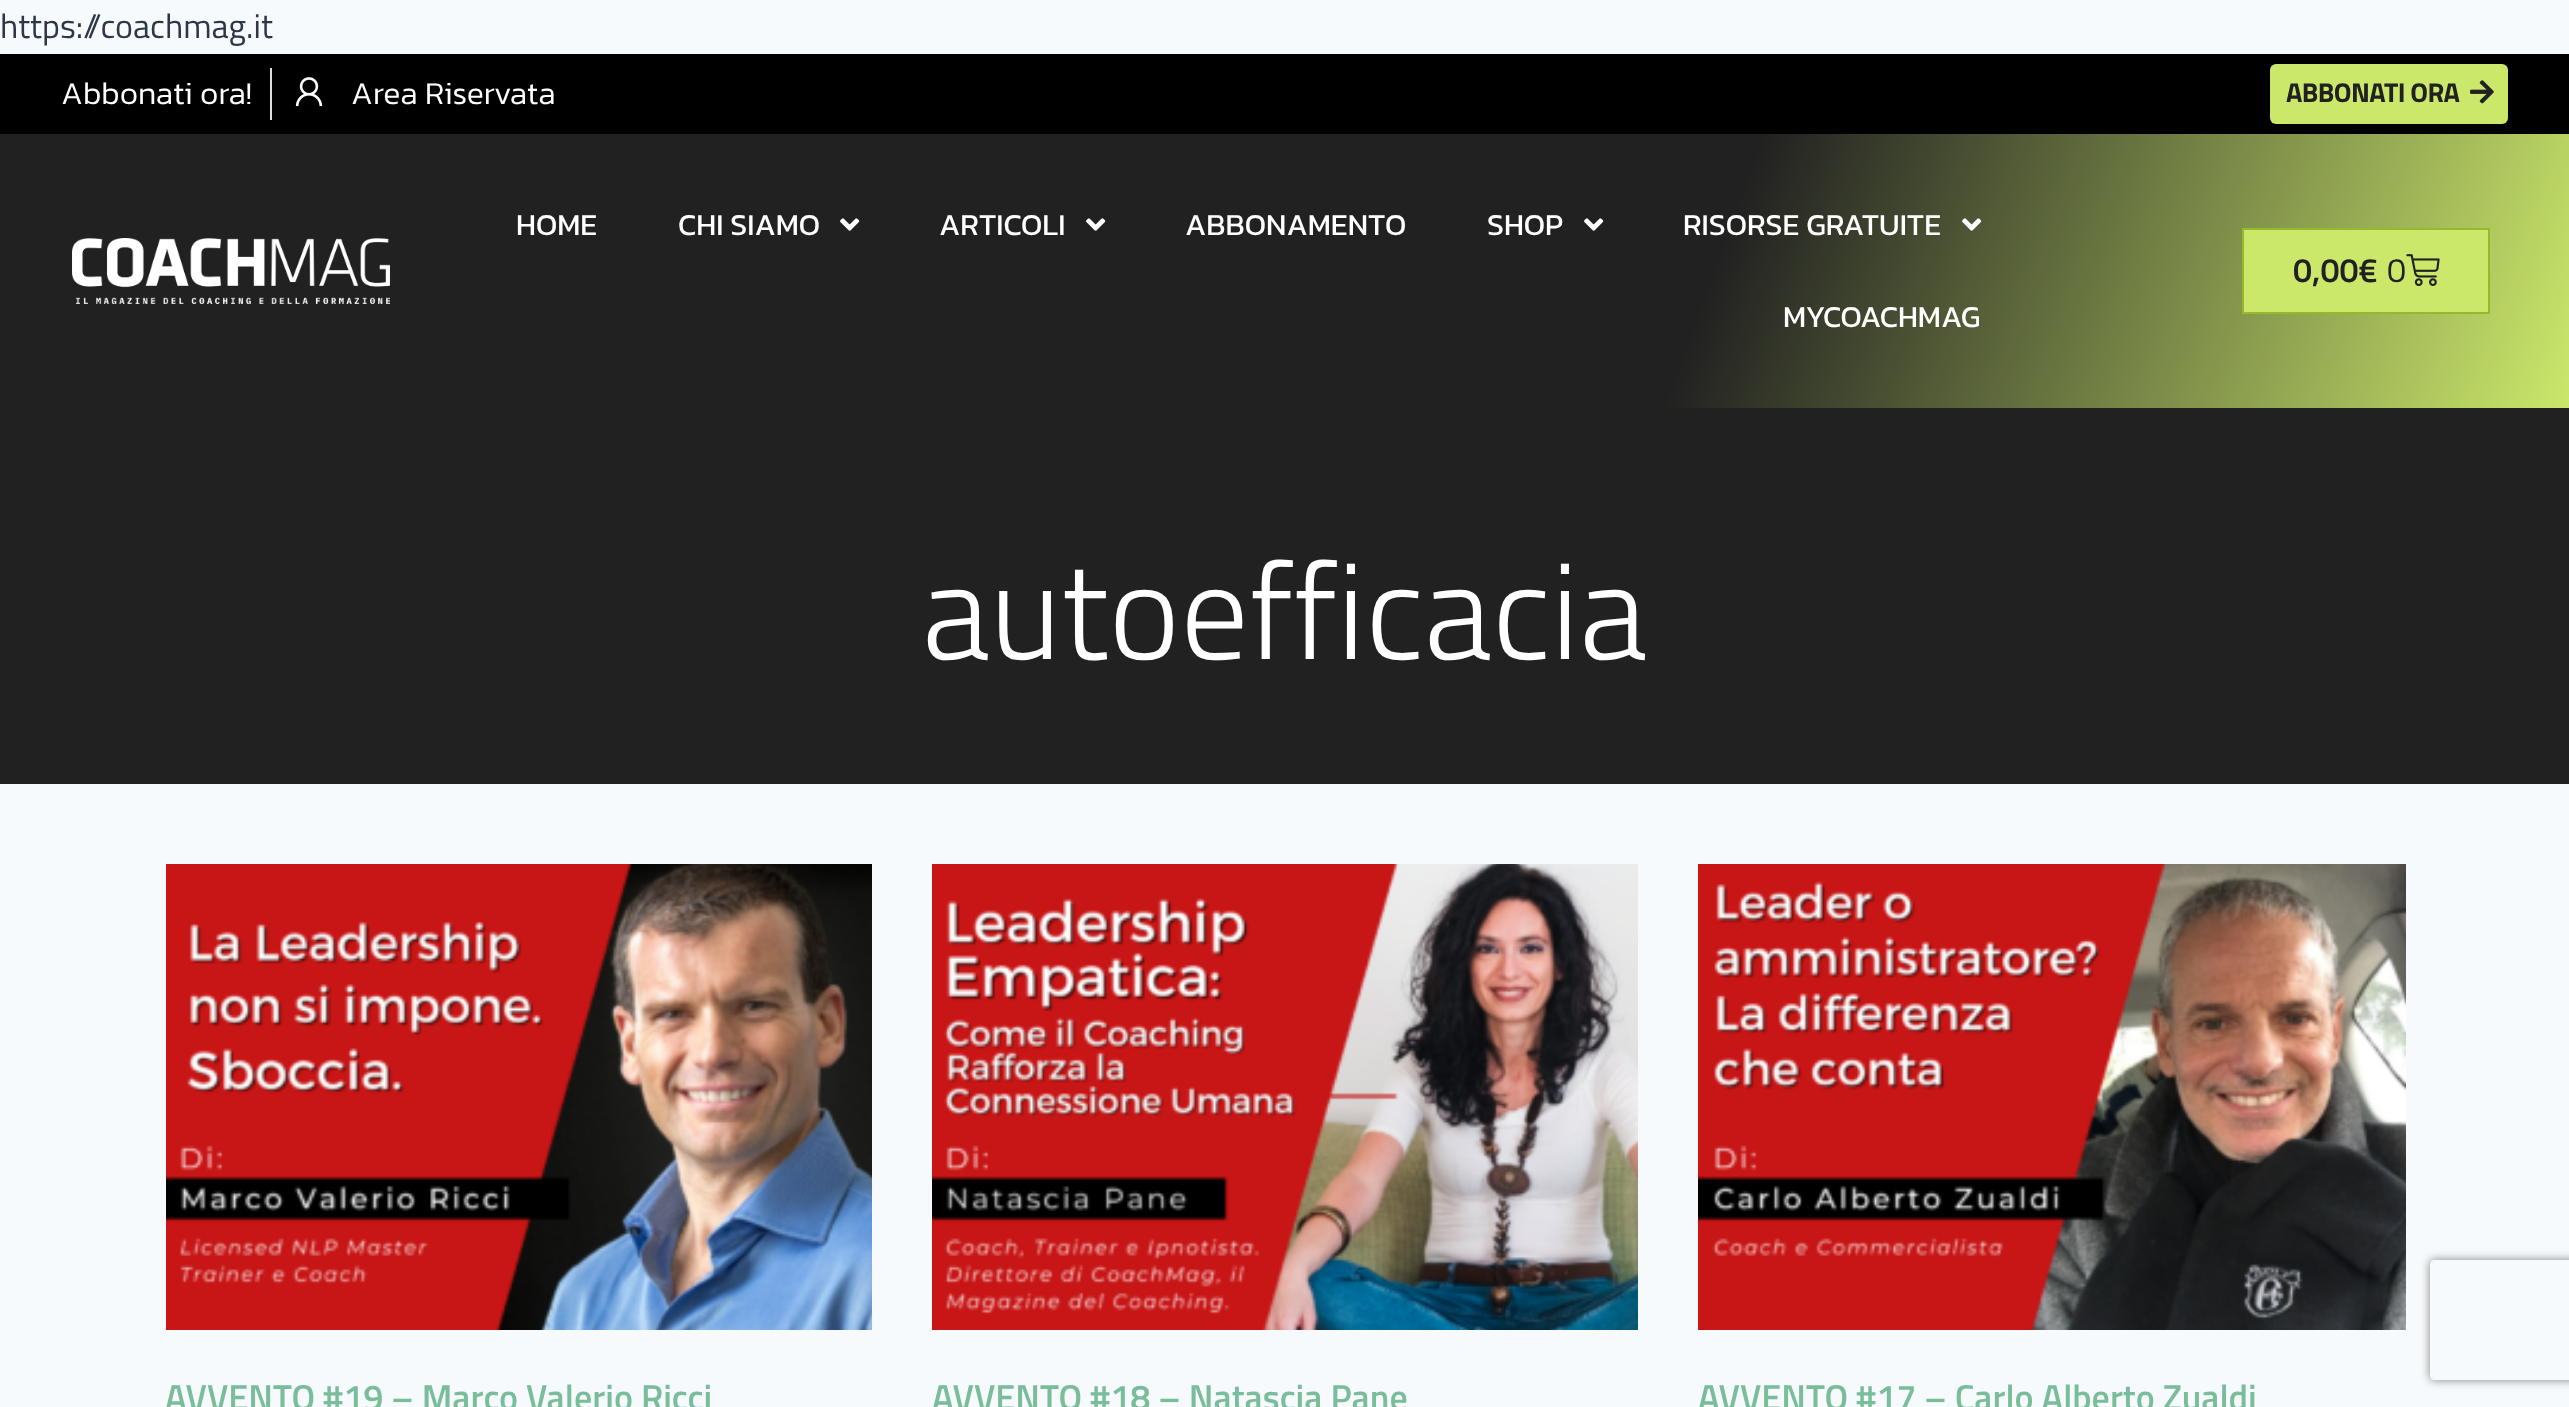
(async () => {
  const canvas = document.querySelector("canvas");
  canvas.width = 2569;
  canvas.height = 1407;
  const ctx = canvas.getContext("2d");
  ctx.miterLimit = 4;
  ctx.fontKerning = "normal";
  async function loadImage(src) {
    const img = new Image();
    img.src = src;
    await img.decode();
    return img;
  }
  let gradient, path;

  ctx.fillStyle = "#f7fafc";
  ctx.fillRect(0, 0, 2569, 1407);
  ctx.fillStyle = "#000000";
  ctx.fillRect(0, 54, 2569, 80);
  ctx.fillStyle = "#dddddd";
  ctx.fillRect(270, 68, 2, 52);
  ctx.drawImage(await loadImage("img/1.png"), 295, 77, 28, 30);
  ctx.fillStyle = "#cbe86b";
  ctx.beginPath();
  ctx.roundRect(2270, 64, 238, 60, 6);
  ctx.fill();
  ctx.drawImage(await loadImage("img/2.png"), 2470, 80, 24, 24);
  gradient = ctx.createLinearGradient(106, -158, 2464, 700);
  gradient.addColorStop(0.66, "#212121");
  gradient.addColorStop(1, "#cbe86b");
  ctx.fillStyle = gradient;
  ctx.fillRect(0, 134, 2569, 274);
  ctx.drawImage(await loadImage("img/3.png"), 72, 238, 318, 66);
  ctx.drawImage(await loadImage("img/4.png"), 840, 218, 20, 13);
  ctx.drawImage(await loadImage("img/4.png"), 1086, 218, 20, 13);
  ctx.drawImage(await loadImage("img/4.png"), 1584, 218, 20, 13);
  ctx.drawImage(await loadImage("img/5.png"), 1962, 218, 20, 13);
  ctx.fillStyle = "#cbe86b";
  ctx.beginPath();
  ctx.rect(2243, 229, 246, 84);
  ctx.fill();
  ctx.strokeStyle = "#98b82b";
  ctx.lineWidth = 2;
  ctx.stroke();
  ctx.drawImage(await loadImage("img/6.png"), 2406, 254, 34, 32);
  ctx.fillStyle = "#212121";
  ctx.fillRect(0, 408, 2569, 376);
  ctx.drawImage(await loadImage("img/7.png"), 166, 864, 706, 466);
  ctx.drawImage(await loadImage("img/8.png"), 932, 864, 706, 466);
  ctx.drawImage(await loadImage("img/9.png"), 1698, 864, 708, 466);
  ctx.save();
  path = new Path2D("M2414 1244H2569V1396H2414ZM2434 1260H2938C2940 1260 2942 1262 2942 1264V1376C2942 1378 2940 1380 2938 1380H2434C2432 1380 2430 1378 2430 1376V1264C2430 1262 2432 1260 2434 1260Z");
  ctx.clip(path, "evenodd");
  ctx.fillStyle = "#808080";
  ctx.filter = "blur(5px)";
  ctx.beginPath();
  ctx.roundRect(2430, 1260, 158, 120, 4);
  ctx.fill();
  ctx.filter = "none";
  ctx.restore();
  ctx.font = "34px Titillium Web";
  ctx.fillStyle = "#2d3748";
  ctx.fillText("https://coachmag.it", 0, 38);
  ctx.font = "300 32px Kanit";
  ctx.fillStyle = "#ffffff";
  ctx.fillText("Abbonati ora!", 61, 104);
  ctx.fillText("Area Riservata", 351, 104);
  ctx.letterSpacing = "-0.6px";
  ctx.font = "bold 27.25px Titillium Web";
  ctx.fillStyle = "#212121";
  ctx.fillText("ABBONATI ORA", 2286, 102);
  ctx.letterSpacing = "0px";
  ctx.font = "30.5px Kanit";
  ctx.fillStyle = "#ffffff";
  for (const [text, x, y] of [
    ["HOME", 516, 235],
    ["CHI SIAMO", 678, 235],
    ["ARTICOLI", 939, 235],
    ["ABBONAMENTO", 1185, 235],
    ["SHOP", 1487, 235],
    ["RISORSE GRATUITE", 1683, 235],
    ["MYCOACHMAG", 1783, 327],
  ]) {
    ctx.fillText(text, x, y);
  }
  ctx.font = "600 34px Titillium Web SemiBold";
  ctx.fillStyle = "#212121";
  ctx.fillText("0,00€", 2293, 282);
  ctx.font = "34px Titillium Web";
  ctx.fillText("0", 2387, 282);
  ctx.font = "300 136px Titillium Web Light";
  ctx.fillStyle = "#ffffff";
  ctx.fillText("autoefficacia", 922, 659);
  ctx.font = "600 36px Titillium Web SemiBold";
  ctx.fillStyle = "#79bd9a";
  for (const [text, x, y] of [
    ["AVVENTO #19 – Marco Valerio Ricci", 165, 1410],
    ["AVVENTO #18 – Natascia Pane", 932, 1410],
    ["AVVENTO #17 – Carlo Alberto Zualdi", 1698, 1410],
  ]) {
    ctx.fillText(text, x, y);
  }
})();
